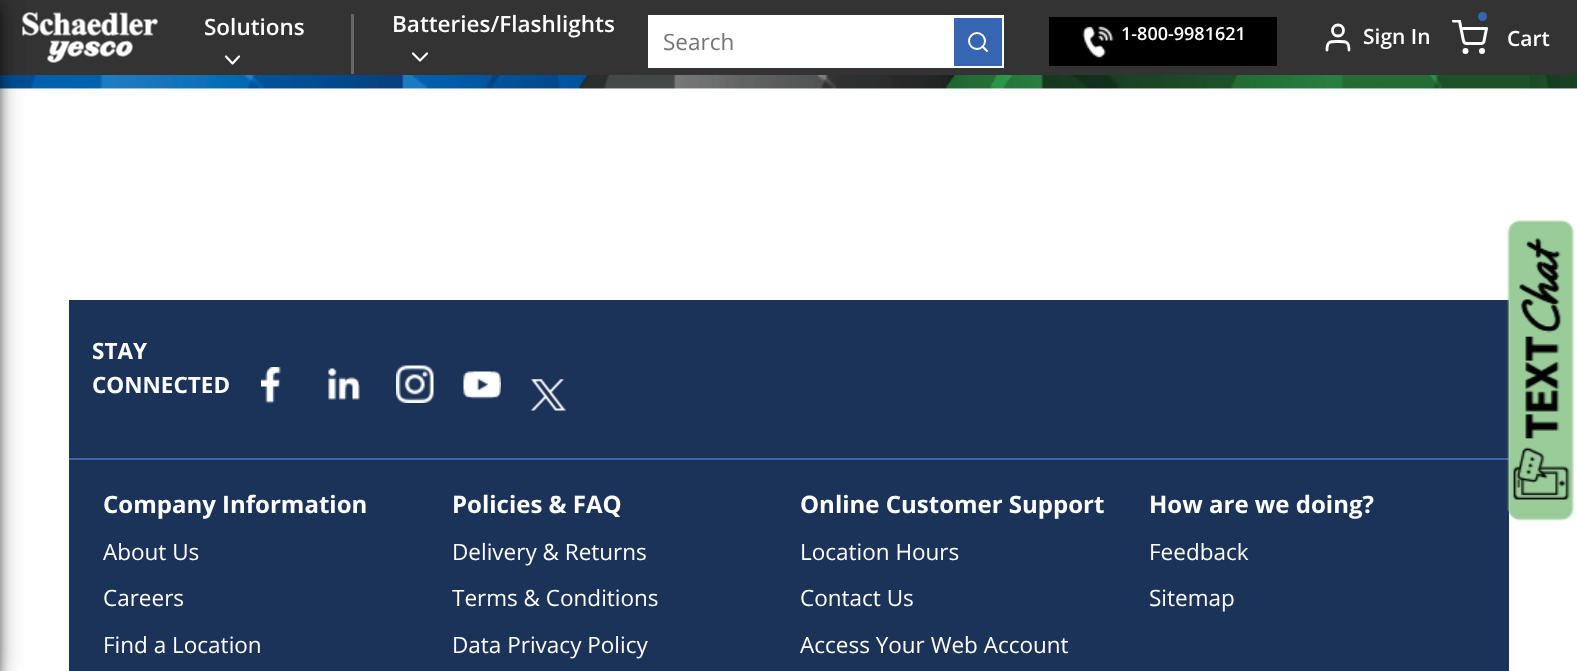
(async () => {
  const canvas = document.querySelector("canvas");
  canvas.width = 1577;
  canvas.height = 671;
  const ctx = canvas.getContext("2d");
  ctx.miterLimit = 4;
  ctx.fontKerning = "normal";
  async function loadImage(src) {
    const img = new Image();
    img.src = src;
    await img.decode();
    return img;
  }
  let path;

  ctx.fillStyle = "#ffffff";
  ctx.fillRect(0, 0, 1577, 671);
  ctx.fillStyle = "#333333";
  ctx.fillRect(0, 0, 1577, 75);
  ctx.drawImage(await loadImage("img/1.png"), 22, 12, 136, 51);
  ctx.drawImage(await loadImage("img/3.png"), 0, 75, 1577, 14);
  ctx.fillStyle = "rgba(0, 0, 0, 0.12)";
  ctx.filter = "blur(13.5px)";
  ctx.beginPath();
  ctx.rect(-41, 2, 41, 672);
  ctx.fill();
  ctx.filter = "none";
  ctx.fillStyle = "rgba(0, 0, 0, 0.14)";
  ctx.filter = "blur(7.5px)";
  ctx.beginPath();
  ctx.rect(-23, 9, 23, 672);
  ctx.fill();
  ctx.filter = "none";
  ctx.fillStyle = "rgba(0, 0, 0, 0.2)";
  ctx.filter = "blur(4px)";
  ctx.beginPath();
  ctx.rect(-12, 6, 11, 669);
  ctx.fill();
  ctx.filter = "none";
  ctx.fillStyle = "rgba(0, 0, 0, 0.12)";
  ctx.filter = "blur(13.5px)";
  ctx.beginPath();
  ctx.rect(-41, 2, 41, 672);
  ctx.fill();
  ctx.filter = "none";
  ctx.fillStyle = "rgba(0, 0, 0, 0.14)";
  ctx.filter = "blur(7.5px)";
  ctx.beginPath();
  ctx.rect(-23, 9, 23, 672);
  ctx.fill();
  ctx.filter = "none";
  ctx.fillStyle = "rgba(0, 0, 0, 0.2)";
  ctx.filter = "blur(4px)";
  ctx.beginPath();
  ctx.rect(-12, 6, 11, 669);
  ctx.fill();
  ctx.filter = "none";
  ctx.fillStyle = "#666666";
  ctx.fillRect(351, 14, 3, 60);
  path = new Path2D("M226 56.5L232.5 63.5L239 56.5");
  ctx.strokeStyle = "#ffffff";
  ctx.lineWidth = 2.2;
  ctx.lineCap = "round";
  ctx.lineJoin = "round";
  ctx.stroke(path);
  path = new Path2D("M413 53.5L420 60.5L427 53.5");
  ctx.stroke(path);
  ctx.fillStyle = "#ffffff";
  ctx.fillRect(648, 15, 356, 53);
  ctx.fillStyle = "#3666b1";
  ctx.fillRect(954, 18, 48, 48);
  ctx.beginPath();
  ctx.arc(977, 41, 8, 0, Math.PI * 2);
  ctx.lineWidth = 2;
  ctx.stroke();
  path = new Path2D("M987 51L982.5 46.5");
  ctx.stroke(path);
  ctx.fillStyle = "#000000";
  ctx.fillRect(1049, 17, 228, 49);
  ctx.drawImage(await loadImage("img/2.png"), 1082, 26, 32, 32);
  path = new Path2D("M1349 50C1349 41 1346 41.5 1338 41.5C1330 41.5 1327 41 1327 50");
  ctx.lineWidth = 2.8;
  ctx.stroke(path);
  ctx.beginPath();
  ctx.arc(1338, 30.5, 5.5, 0, Math.PI * 2);
  ctx.stroke();
  ctx.beginPath();
  ctx.arc(1465.5, 51, 1.5, 0, Math.PI * 2);
  ctx.lineWidth = 3;
  ctx.stroke();
  ctx.beginPath();
  ctx.arc(1482, 51, 1.5, 0, Math.PI * 2);
  ctx.stroke();
  ctx.save();
  ctx.beginPath();
  ctx.rect(1452, 20, 36, 36);
  ctx.clip();
  path = new Path2D("M1453.5 21H1459.5L1463.5 41C1464 42.5 1465 43.5 1466.5 43.5H1481C1482.5 43.5 1484 42.5 1484 41L1486.5 28.5H1461");
  ctx.stroke(path);
  ctx.restore();
  ctx.fillStyle = "#3666b1";
  ctx.beginPath();
  ctx.arc(1482.5, 16.5, 4.5, 0, Math.PI * 2);
  ctx.fill();
  ctx.fillStyle = "#1b3358";
  ctx.fillRect(69, 300, 1440, 371);
  ctx.fillStyle = "#4165ac";
  ctx.fillRect(69, 458, 1440, 2);
  ctx.drawImage(await loadImage("img/4.png"), 1507, 220, 67, 301);
  ctx.drawImage(await loadImage("img/5.png"), 261, 367, 20, 36);
  ctx.drawImage(await loadImage("img/6.png"), 328, 368, 32, 32);
  ctx.drawImage(await loadImage("img/7.png"), 396, 365, 38, 38);
  ctx.drawImage(await loadImage("img/8.png"), 463, 371, 38, 28);
  ctx.drawImage(await loadImage("img/9.png"), 531, 379, 35, 32);
  ctx.font = "600 22.5px 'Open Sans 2'";
  ctx.fillStyle = "#ffffff";
  ctx.fillText("Solutions", 204, 35);
  ctx.fillText("Batteries/Flashlights", 392, 32);
  ctx.font = "22.5px Open Sans";
  ctx.fillStyle = "#757575";
  ctx.fillText("Search", 663, 50);
  ctx.font = "600 18px Open Sans";
  ctx.fillStyle = "#ffffff";
  ctx.fillText("1-800-9981621", 1121, 40);
  ctx.font = "600 21px 'Open Sans 2'";
  ctx.fillText("Sign In", 1363, 44);
  ctx.fillText("Cart", 1507, 46);
  ctx.font = "bold 22.5px Open Sans";
  ctx.fillText("STAY", 92, 359);
  ctx.fillText("CONNECTED", 92, 393);
  ctx.font = "bold 24px Open Sans";
  ctx.fillText("Company Information", 103, 513);
  ctx.font = "22.5px Open Sans";
  for (const [text, x, y] of [
    ["About Us", 103, 560],
    ["Careers", 103, 606],
    ["Find a Location", 103, 653],
  ]) {
    ctx.fillText(text, x, y);
  }
  ctx.font = "bold 24px Open Sans";
  ctx.fillText("Policies & FAQ", 452, 513);
  ctx.font = "22.5px Open Sans";
  for (const [text, x, y] of [
    ["Delivery & Returns", 452, 560],
    ["Terms & Conditions", 452, 606],
    ["Data Privacy Policy", 452, 653],
  ]) {
    ctx.fillText(text, x, y);
  }
  ctx.font = "bold 24px Open Sans";
  ctx.fillText("Online Customer Support", 800, 513);
  ctx.font = "22.5px Open Sans";
  for (const [text, x, y] of [
    ["Location Hours", 800, 560],
    ["Contact Us", 800, 606],
    ["Access Your Web Account", 800, 653],
  ]) {
    ctx.fillText(text, x, y);
  }
  ctx.font = "bold 24px Open Sans";
  ctx.fillText("How are we doing?", 1149, 513);
  ctx.font = "22.5px Open Sans";
  ctx.fillText("Feedback", 1149, 560);
  ctx.fillText("Sitemap", 1149, 606);
})();
